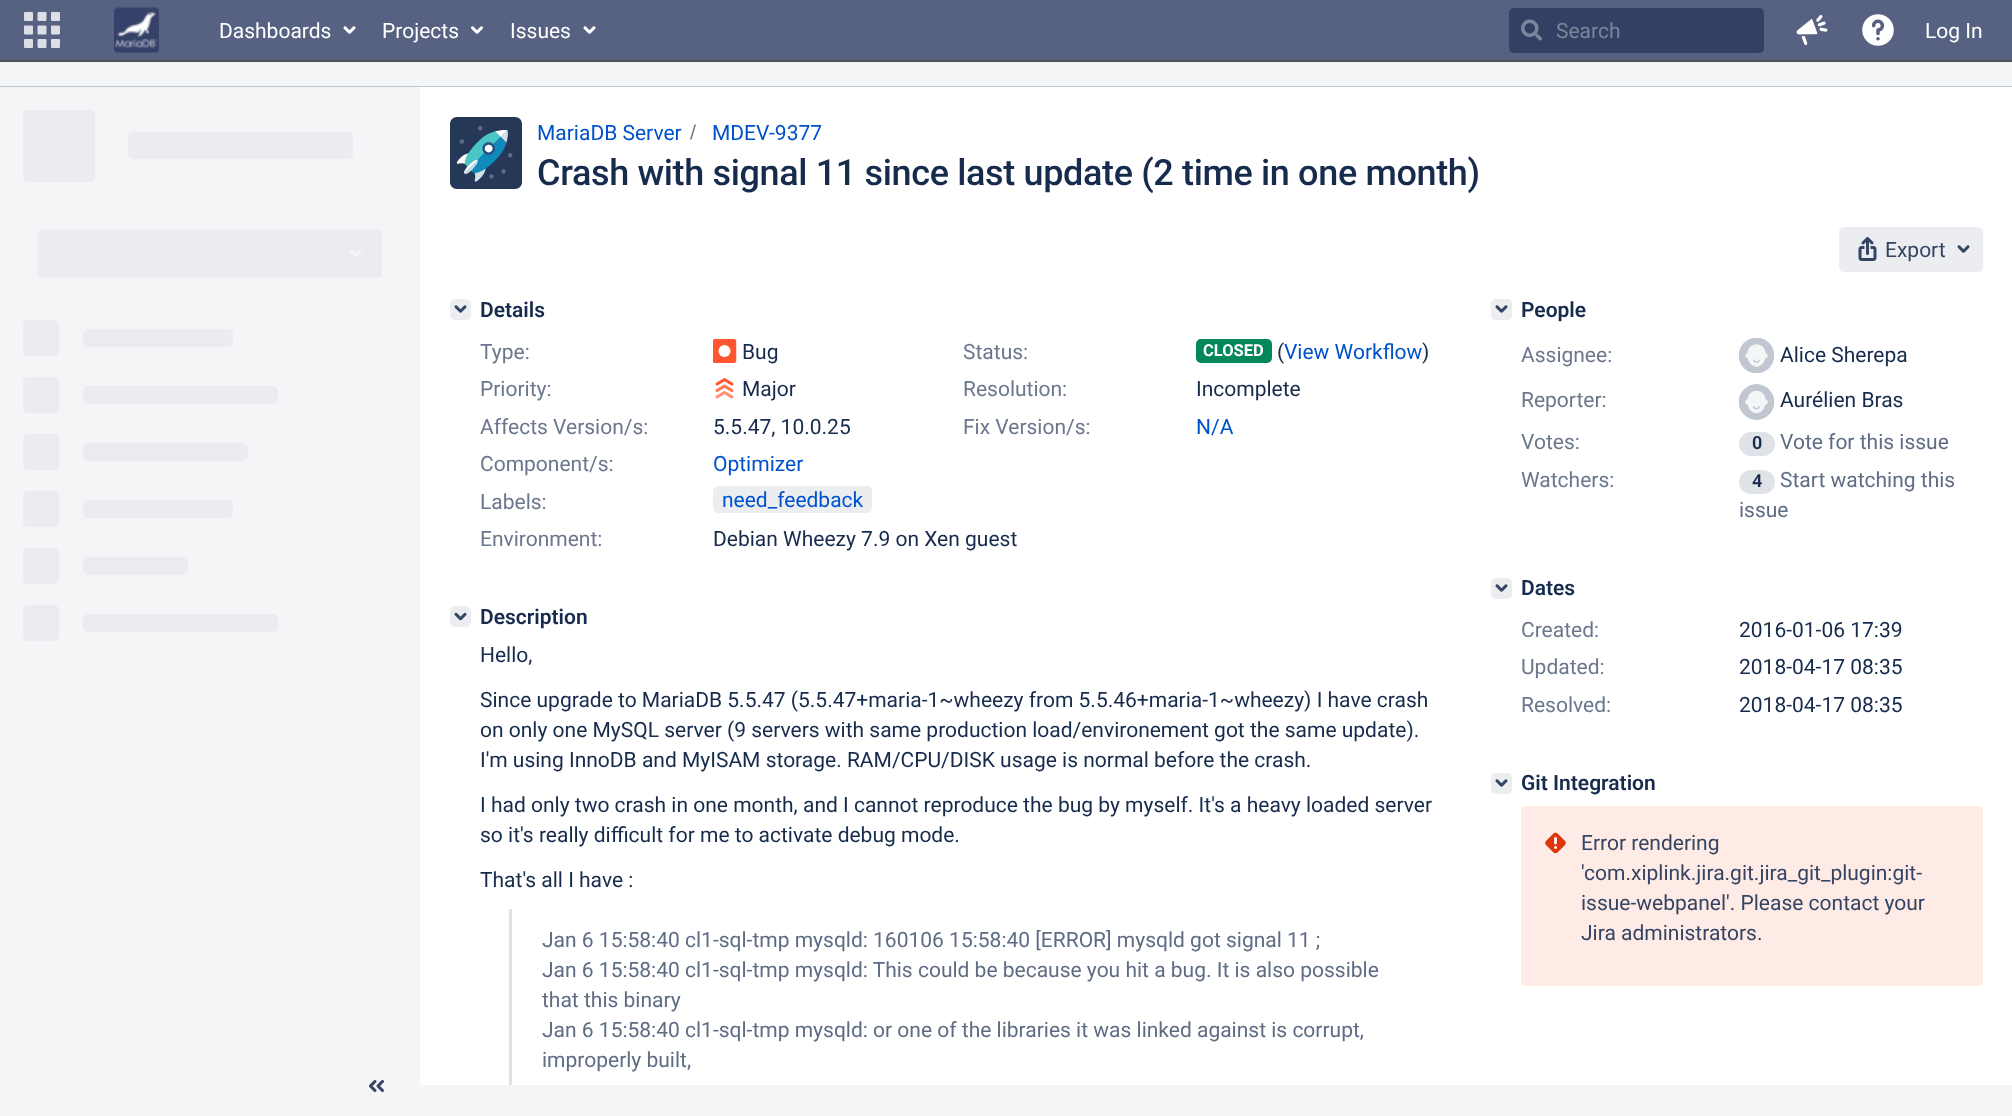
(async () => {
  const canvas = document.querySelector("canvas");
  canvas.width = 2012;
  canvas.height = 1116;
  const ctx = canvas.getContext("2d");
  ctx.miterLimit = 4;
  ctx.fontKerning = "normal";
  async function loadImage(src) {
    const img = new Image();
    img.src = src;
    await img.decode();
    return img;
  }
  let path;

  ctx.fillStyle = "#f4f5f7";
  ctx.fillRect(0, 0, 2012, 1116);
  ctx.fillStyle = "#576181";
  ctx.fillRect(0, 0, 2012, 60);
  ctx.fillStyle = "#525254";
  ctx.fillRect(0, 60, 2012, 2);
  ctx.drawImage(await loadImage("img/1.png"), 24, 12, 36, 36);
  ctx.drawImage(await loadImage("img/2.png"), 114, 7, 45, 46);
  ctx.drawImage(await loadImage("img/3.png"), 343, 26, 13, 8);
  ctx.drawImage(await loadImage("img/4.png"), 471, 26, 12, 8);
  ctx.drawImage(await loadImage("img/3.png"), 583, 26, 13, 8);
  ctx.fillStyle = "#324163";
  ctx.beginPath();
  ctx.roundRect(1509, 8, 255, 45, 5);
  ctx.fill();
  ctx.drawImage(await loadImage("img/5.png"), 1521, 19, 21, 22);
  ctx.drawImage(await loadImage("img/6.png"), 1796, 15, 32, 30);
  ctx.drawImage(await loadImage("img/7.png"), 1862, 14, 32, 32);
  ctx.fillStyle = "#c1c7d0";
  ctx.fillRect(0, 86, 2012, 1);
  ctx.drawImage(await loadImage("img/8.png"), 23, 110, 359, 531);
  ctx.drawImage(await loadImage("img/9.png"), 369, 1080, 15, 12);
  ctx.fillStyle = "#ffffff";
  ctx.fillRect(420, 87, 1592, 998);
  ctx.drawImage(await loadImage("img/10.png"), 450, 117, 72, 72);
  ctx.fillStyle = "#707070";
  path = new Path2D("M691.5 139.5L696 124.5H694.5L690 139.5Z");
  ctx.fill(path);
  ctx.fillStyle = "#ebedf0";
  ctx.beginPath();
  ctx.roundRect(1839, 227, 144, 45, 5);
  ctx.fill();
  ctx.drawImage(await loadImage("img/11.png"), 1858, 237, 19, 24);
  ctx.drawImage(await loadImage("img/12.png"), 1957, 245, 13, 8);
  ctx.beginPath();
  ctx.roundRect(450, 299, 21, 21, 5);
  ctx.fill();
  ctx.drawImage(await loadImage("img/13.png"), 454, 305, 13, 8);
  ctx.drawImage(await loadImage("img/14.png"), 713, 339, 24, 24);
  ctx.fillStyle = "#00875a";
  ctx.beginPath();
  ctx.roundRect(1196, 339, 76, 24, 5);
  ctx.fill();
  ctx.drawImage(await loadImage("img/15.png"), 715, 378, 19, 21);
  ctx.fillStyle = "#ebedf0";
  ctx.beginPath();
  ctx.roundRect(713, 486, 159, 27, 5);
  ctx.fill();
  ctx.beginPath();
  ctx.roundRect(450, 606, 21, 21, 5);
  ctx.fill();
  ctx.drawImage(await loadImage("img/16.png"), 454, 612, 13, 9);
  ctx.fillStyle = "#dfe1e6";
  ctx.fillRect(509, 909, 3, 176);
  ctx.fillStyle = "#ebedf0";
  ctx.beginPath();
  ctx.roundRect(1491, 299, 21, 21, 5);
  ctx.fill();
  ctx.drawImage(await loadImage("img/13.png"), 1495, 305, 13, 8);
  ctx.drawImage(await loadImage("img/17.png"), 1739, 338, 36, 36);
  ctx.drawImage(await loadImage("img/18.png"), 1739, 384, 36, 36);
  ctx.fillStyle = "#dfe2e6";
  ctx.beginPath();
  ctx.roundRect(1739, 432, 36, 24, 12);
  ctx.fill();
  ctx.beginPath();
  ctx.roundRect(1739, 470, 36, 24, 12);
  ctx.fill();
  ctx.fillStyle = "#ebedf0";
  ctx.beginPath();
  ctx.roundRect(1491, 578, 21, 21, 5);
  ctx.fill();
  ctx.drawImage(await loadImage("img/13.png"), 1495, 584, 13, 8);
  ctx.beginPath();
  ctx.roundRect(1491, 773, 21, 21, 5);
  ctx.fill();
  ctx.drawImage(await loadImage("img/13.png"), 1495, 779, 13, 8);
  ctx.fillStyle = "#ffebe6";
  ctx.beginPath();
  ctx.roundRect(1521, 806, 462, 180, 5);
  ctx.fill();
  ctx.drawImage(await loadImage("img/19.png"), 1545, 832, 21, 22);
  ctx.font = "21px Roboto";
  ctx.fillStyle = "#ffffff";
  for (const [text, x, y] of [
    ["Dashboards", 219, 38],
    ["Projects", 382, 38],
    ["Issues", 510, 38],
  ]) {
    ctx.fillText(text, x, y);
  }
  ctx.fillStyle = "#7a869a";
  ctx.fillText("Search", 1556, 38);
  ctx.fillStyle = "#ffffff";
  ctx.fillText("Log In", 1925, 38);
  ctx.fillStyle = "#0052cc";
  ctx.fillText("MariaDB Server", 537, 140);
  ctx.fillText("MDEV-9377", 712, 140);
  ctx.letterSpacing = "-0.35px";
  ctx.font = "500 36px Roboto";
  ctx.fillStyle = "#172b4d";
  ctx.fillText("Crash with signal 11 since last update (2 time in one month)", 537, 185);
  ctx.letterSpacing = "0px";
  ctx.font = "21px Roboto";
  ctx.fillStyle = "#344563";
  ctx.fillText("Export", 1885, 257);
  ctx.font = "600 21px Roboto";
  ctx.fillStyle = "#172b4d";
  ctx.fillText("Details", 480, 317);
  ctx.font = "21px Roboto";
  ctx.fillStyle = "#6b778c";
  ctx.fillText("Type:", 480, 359);
  ctx.fillStyle = "#172b4d";
  ctx.fillText("Bug", 742, 359);
  ctx.fillStyle = "#6b778c";
  ctx.fillText("Status:", 963, 359);
  ctx.font = "bold 16.5px Roboto";
  ctx.fillStyle = "#ffffff";
  ctx.fillText("CLOSED", 1203, 356);
  ctx.font = "21px Roboto";
  ctx.fillStyle = "#172b4d";
  ctx.fillText("(", 1277, 359);
  ctx.fillStyle = "#0052cc";
  ctx.fillText("View Workflow", 1284, 359);
  ctx.fillStyle = "#172b4d";
  ctx.fillText(")", 1422, 359);
  ctx.fillStyle = "#6b778c";
  ctx.fillText("Priority:", 480, 396);
  ctx.fillStyle = "#172b4d";
  ctx.fillText("Major", 742, 396);
  ctx.fillStyle = "#6b778c";
  ctx.fillText("Resolution:", 963, 396);
  ctx.fillStyle = "#172b4d";
  ctx.fillText("Incomplete", 1196, 396);
  ctx.fillStyle = "#6b778c";
  ctx.fillText("Affects Version/s:", 480, 434);
  ctx.fillStyle = "#172b4d";
  ctx.fillText("5.5.47, 10.0.25", 713, 434);
  ctx.fillStyle = "#6b778c";
  ctx.fillText("Fix Version/s:", 963, 434);
  ctx.fillStyle = "#0052cc";
  ctx.fillText("N/A", 1196, 434);
  ctx.fillStyle = "#6b778c";
  ctx.fillText("Component/s:", 480, 471);
  ctx.fillStyle = "#0052cc";
  ctx.fillText("Optimizer", 713, 471);
  ctx.fillStyle = "#6b778c";
  ctx.fillText("Labels:", 480, 509);
  ctx.fillStyle = "#0052cc";
  ctx.fillText("need_feedback", 722, 507);
  ctx.fillStyle = "#6b778c";
  ctx.fillText("Environment:", 480, 546);
  ctx.fillStyle = "#172b4d";
  ctx.fillText("Debian Wheezy 7.9 on Xen guest", 713, 546);
  ctx.font = "600 21px Roboto";
  ctx.fillText("Description", 480, 624);
  ctx.font = "21px Roboto";
  for (const [text, x, y] of [
    ["Hello,", 480, 662],
    ["Since upgrade to MariaDB 5.5.47 (5.5.47+maria-1~wheezy from 5.5.46+maria-1~wheezy) I have crash", 480, 707],
    ["on only one MySQL server (9 servers with same production load/environement got the same update).", 480, 737],
    ["I'm using InnoDB and MyISAM storage. RAM/CPU/DISK usage is normal before the crash.", 480, 767],
    ["I had only two crash in one month, and I cannot reproduce the bug by myself. It's a heavy loaded server", 480, 812],
    ["so it's really difficult for me to activate debug mode.", 480, 842],
    ["That's all I have :", 480, 887],
  ]) {
    ctx.fillText(text, x, y);
  }
  ctx.fillStyle = "#5e6c84";
  for (const [text, x, y] of [
    ["Jan 6 15:58:40 cl1-sql-tmp mysqld: 160106 15:58:40 [ERROR] mysqld got signal 11 ;", 542, 947],
    ["Jan 6 15:58:40 cl1-sql-tmp mysqld: This could be because you hit a bug. It is also possible", 542, 977],
    ["that this binary", 542, 1007],
    ["Jan 6 15:58:40 cl1-sql-tmp mysqld: or one of the libraries it was linked against is corrupt,", 542, 1037],
    ["improperly built,", 542, 1067],
  ]) {
    ctx.fillText(text, x, y);
  }
  ctx.font = "600 21px Roboto";
  ctx.fillStyle = "#172b4d";
  ctx.fillText("People", 1521, 317);
  ctx.font = "21px Roboto";
  ctx.fillStyle = "#6b778c";
  ctx.fillText("Assignee:", 1521, 362);
  ctx.fillStyle = "#172b4d";
  ctx.fillText("Alice Sherepa", 1780, 362);
  ctx.fillStyle = "#6b778c";
  ctx.fillText("Reporter:", 1521, 407);
  ctx.fillStyle = "#172b4d";
  ctx.fillText("Aurélien Bras", 1780, 407);
  ctx.fillStyle = "#6b778c";
  ctx.fillText("Votes:", 1521, 449);
  ctx.font = "600 18px Roboto";
  ctx.fillStyle = "#172b4d";
  ctx.fillText("0", 1752, 449);
  ctx.font = "21px Roboto";
  ctx.fillStyle = "#5e6c84";
  ctx.fillText("Vote for this issue", 1780, 449);
  ctx.fillStyle = "#6b778c";
  ctx.fillText("Watchers:", 1521, 487);
  ctx.font = "600 18px Roboto";
  ctx.fillStyle = "#172b4d";
  ctx.fillText("4", 1752, 487);
  ctx.font = "21px Roboto";
  ctx.fillStyle = "#5e6c84";
  ctx.fillText("Start watching this", 1780, 487);
  ctx.fillText("issue", 1739, 517);
  ctx.font = "600 21px Roboto";
  ctx.fillStyle = "#172b4d";
  ctx.fillText("Dates", 1521, 595);
  ctx.font = "21px Roboto";
  ctx.fillStyle = "#6b778c";
  ctx.fillText("Created:", 1521, 637);
  ctx.fillStyle = "#172b4d";
  ctx.fillText("2016-01-06 17:39", 1739, 637);
  ctx.fillStyle = "#6b778c";
  ctx.fillText("Updated:", 1521, 674);
  ctx.fillStyle = "#172b4d";
  ctx.fillText("2018-04-17 08:35", 1739, 674);
  ctx.fillStyle = "#6b778c";
  ctx.fillText("Resolved:", 1521, 712);
  ctx.fillStyle = "#172b4d";
  ctx.fillText("2018-04-17 08:35", 1739, 712);
  ctx.font = "600 21px Roboto";
  ctx.fillText("Git Integration", 1521, 790);
  ctx.font = "21px Roboto";
  ctx.fillStyle = "#344563";
  for (const [text, x, y] of [
    ["Error rendering", 1581, 850],
    ["'com.xiplink.jira.git.jira_git_plugin:git-", 1581, 880],
    ["issue-webpanel'. Please contact your", 1581, 910],
    ["Jira administrators.", 1581, 940],
  ]) {
    ctx.fillText(text, x, y);
  }
})();
